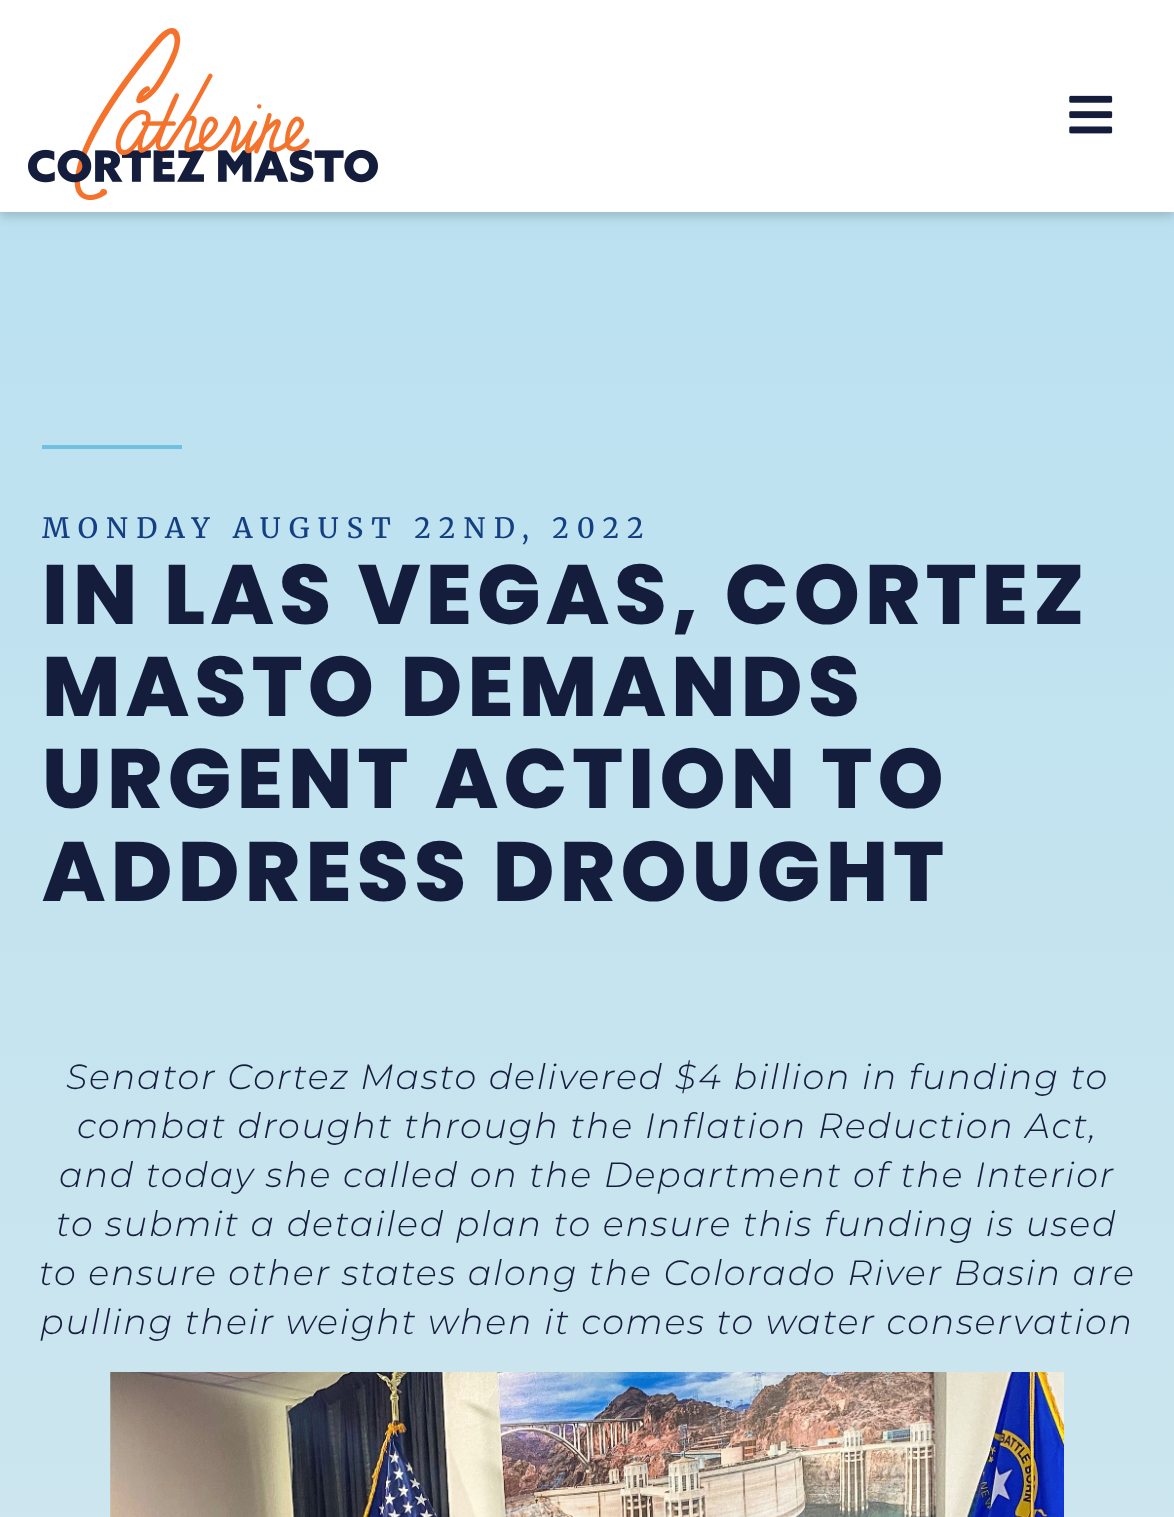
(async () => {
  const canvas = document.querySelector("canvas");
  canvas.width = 1174;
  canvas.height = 1517;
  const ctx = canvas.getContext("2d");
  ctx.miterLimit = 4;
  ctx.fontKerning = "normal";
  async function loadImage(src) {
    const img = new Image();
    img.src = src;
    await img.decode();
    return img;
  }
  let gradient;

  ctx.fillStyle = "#ffffff";
  ctx.fillRect(0, 0, 1174, 1517);
  gradient = ctx.createLinearGradient(587, 0, 587, 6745);
  gradient.addColorStop(0, "#b8e0f1");
  gradient.addColorStop(0.75, "#fcf3e9");
  ctx.fillStyle = gradient;
  ctx.fillRect(0, 212, 1174, 1305);
  ctx.fillStyle = "rgba(0, 0, 0, 0.16)";
  ctx.filter = "blur(5px)";
  ctx.beginPath();
  ctx.rect(0, 5, 1174, 212);
  ctx.fill();
  ctx.filter = "none";
  ctx.fillStyle = "#ffffff";
  ctx.fillRect(0, 0, 1174, 212);
  ctx.drawImage(await loadImage("img/1.png"), 28, 28, 350, 172);
  ctx.drawImage(await loadImage("img/2.png"), 1069, 95, 44, 39);
  ctx.fillStyle = "#71c0e2";
  ctx.fillRect(42, 445, 140, 4);
  ctx.drawImage(await loadImage("img/3.png"), 110, 1372, 954, 145);
  ctx.letterSpacing = "8.4px";
  ctx.font = "500 28px Merriweather";
  ctx.fillStyle = "#143f83";
  ctx.fillText("MONDAY AUGUST 22ND, 2022", 42, 538);
  ctx.letterSpacing = "5.25px";
  ctx.font = "800 84px Poppins";
  ctx.fillStyle = "#151d3d";
  for (const [text, x, y] of [
    ["IN LAS VEGAS, CORTEZ", 42, 624],
    ["MASTO DEMANDS", 42, 716],
    ["URGENT ACTION TO", 42, 808],
    ["ADDRESS DROUGHT", 42, 901],
  ]) {
    ctx.fillText(text, x, y);
  }
  ctx.letterSpacing = "1.75px";
  ctx.font = "italic 300 35px Montserrat";
  for (const [text, x, y] of [
    ["Senator Cortez Masto delivered $4 billion in funding to", 66, 1089],
    ["combat drought through the Inflation Reduction Act,", 77, 1138],
    ["and today she called on the Department of the Interior", 59, 1187],
    ["to submit a detailed plan to ensure this funding is used", 56, 1236],
    ["to ensure other states along the Colorado River Basin are", 39, 1285],
    ["pulling their weight when it comes to water conservation", 40, 1334],
  ]) {
    ctx.fillText(text, x, y);
  }
})();
